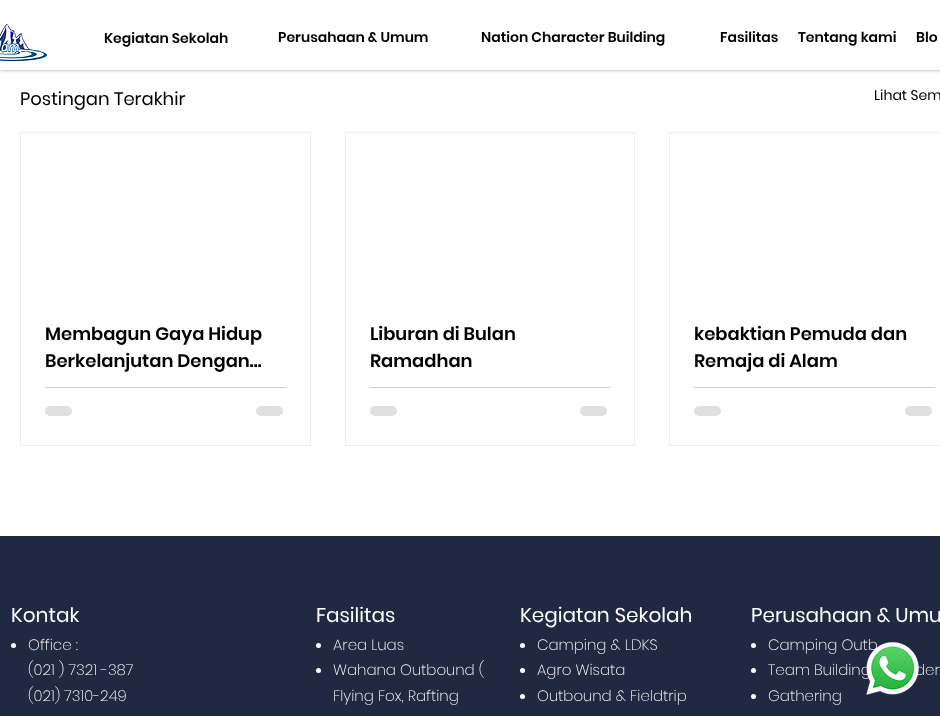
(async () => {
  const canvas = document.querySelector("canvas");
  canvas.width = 940;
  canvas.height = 716;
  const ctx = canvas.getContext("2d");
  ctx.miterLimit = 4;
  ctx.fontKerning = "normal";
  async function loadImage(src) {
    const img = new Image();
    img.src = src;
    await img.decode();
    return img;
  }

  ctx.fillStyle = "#ffffff";
  ctx.fillRect(0, 0, 940, 716);
  ctx.fillStyle = "rgba(0, 0, 0, 0.6)";
  ctx.filter = "blur(2px)";
  ctx.beginPath();
  ctx.rect(0, -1, 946, 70);
  ctx.fill();
  ctx.filter = "none";
  ctx.fillStyle = "#ffffff";
  ctx.fillRect(0, 0, 940, 70);
  ctx.drawImage(await loadImage("img/1.png"), 0, 23, 47, 39);
  ctx.strokeStyle = "#eeecec";
  ctx.strokeRect(20.5, 132.5, 290, 313);
  ctx.fillStyle = "#cccccc";
  ctx.fillRect(45, 387, 241, 1);
  ctx.fillStyle = "#e0e0e0";
  ctx.beginPath();
  ctx.roundRect(45, 406, 27, 10, 5);
  ctx.fill();
  ctx.beginPath();
  ctx.roundRect(256, 406, 27, 10, 5);
  ctx.fill();
  ctx.strokeRect(345.5, 132.5, 289, 313);
  ctx.fillStyle = "#cccccc";
  ctx.fillRect(370, 387, 240, 1);
  ctx.fillStyle = "#e0e0e0";
  ctx.beginPath();
  ctx.roundRect(370, 406, 27, 10, 5);
  ctx.fill();
  ctx.beginPath();
  ctx.roundRect(580, 406, 27, 10, 5);
  ctx.fill();
  ctx.strokeRect(669.5, 132.5, 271, 313);
  ctx.fillStyle = "#cccccc";
  ctx.fillRect(694, 387, 241, 1);
  ctx.fillStyle = "#e0e0e0";
  ctx.beginPath();
  ctx.roundRect(694, 406, 27, 10, 5);
  ctx.fill();
  ctx.beginPath();
  ctx.roundRect(905, 406, 27, 10, 5);
  ctx.fill();
  ctx.fillStyle = "#202942";
  ctx.fillRect(0, 536, 940, 180);
  ctx.fillStyle = "#ffffff";
  ctx.beginPath();
  ctx.arc(13.5, 645.5, 2.5, 0, Math.PI * 2);
  ctx.fill();
  ctx.beginPath();
  ctx.arc(318.5, 645.5, 2.5, 0, Math.PI * 2);
  ctx.fill();
  ctx.beginPath();
  ctx.arc(318.5, 670.5, 2.5, 0, Math.PI * 2);
  ctx.fill();
  ctx.beginPath();
  ctx.arc(522.5, 645.5, 2.5, 0, Math.PI * 2);
  ctx.fill();
  ctx.beginPath();
  ctx.arc(522.5, 670.5, 2.5, 0, Math.PI * 2);
  ctx.fill();
  ctx.beginPath();
  ctx.arc(522.5, 696.5, 2.5, 0, Math.PI * 2);
  ctx.fill();
  ctx.beginPath();
  ctx.arc(753.5, 645.5, 2.5, 0, Math.PI * 2);
  ctx.fill();
  ctx.beginPath();
  ctx.arc(753.5, 670.5, 2.5, 0, Math.PI * 2);
  ctx.fill();
  ctx.beginPath();
  ctx.arc(753.5, 696.5, 2.5, 0, Math.PI * 2);
  ctx.fill();
  ctx.font = "600 14px Poppins";
  ctx.fillStyle = "#000000";
  for (const [text, x, y] of [
    ["Kegiatan Sekolah", 104, 43],
    ["Perusahaan & Umum", 278, 42],
    ["Nation Character Building", 481, 42],
    ["Fasilitas", 720, 42],
    ["Tentang kami", 798, 42],
    ["Blo", 916, 42],
  ]) {
    ctx.fillText(text, x, y);
  }
  ctx.font = "18px Poppins";
  ctx.fillText("Postingan Terakhir", 20, 105);
  ctx.font = "14px Poppins";
  ctx.fillText("Lihat Sem", 874, 100);
  ctx.font = "600 18px Poppins";
  for (const [text, x, y] of [
    ["Membagun Gaya Hidup", 45, 340],
    ["Berkelanjutan Dengan…", 45, 367],
    ["Liburan di Bulan", 370, 340],
    ["Ramadhan", 370, 367],
    ["kebaktian Pemuda dan", 694, 340],
    ["Remaja di Alam", 694, 367],
  ]) {
    ctx.fillText(text, x, y);
  }
  ctx.font = "20px Poppins";
  ctx.fillStyle = "#ffffff";
  ctx.fillText("Kontak", 11, 622);
  ctx.font = "200 15px Poppins";
  for (const [text, x, y] of [
    ["Office :", 28, 650],
    ["(021 ) 7321 -387", 28, 675],
    ["(021) 7310-249", 28, 701],
  ]) {
    ctx.fillText(text, x, y);
  }
  ctx.font = "20px Poppins";
  ctx.fillText("F", 316, 622);
  ctx.fillText("asilitas", 326, 622);
  ctx.font = "200 15px Poppins";
  for (const [text, x, y] of [
    ["Area Luas", 333, 650],
    ["Wahana Outbound (", 333, 675],
    ["Flying Fox, Rafting", 333, 701],
  ]) {
    ctx.fillText(text, x, y);
  }
  ctx.font = "20px Poppins";
  ctx.fillText("Kegiatan Sekolah", 520, 622);
  ctx.font = "200 15px Poppins";
  for (const [text, x, y] of [
    ["Camping & LDKS", 537, 650],
    ["Agro Wisata", 537, 675],
    ["Outbound & Fieldtrip", 537, 701],
  ]) {
    ctx.fillText(text, x, y);
  }
  ctx.font = "20px Poppins";
  ctx.fillText("Perusahaan & Umu", 751, 622);
  ctx.font = "200 15px Poppins";
  for (const [text, x, y] of [
    ["Camping Outb", 768, 650],
    ["Team Building", 768, 675],
    ["der", 915, 675],
    ["Gathering", 768, 701],
  ]) {
    ctx.fillText(text, x, y);
  }
  ctx.drawImage(await loadImage("img/2.png"), 866, 642, 53, 53);
})();
